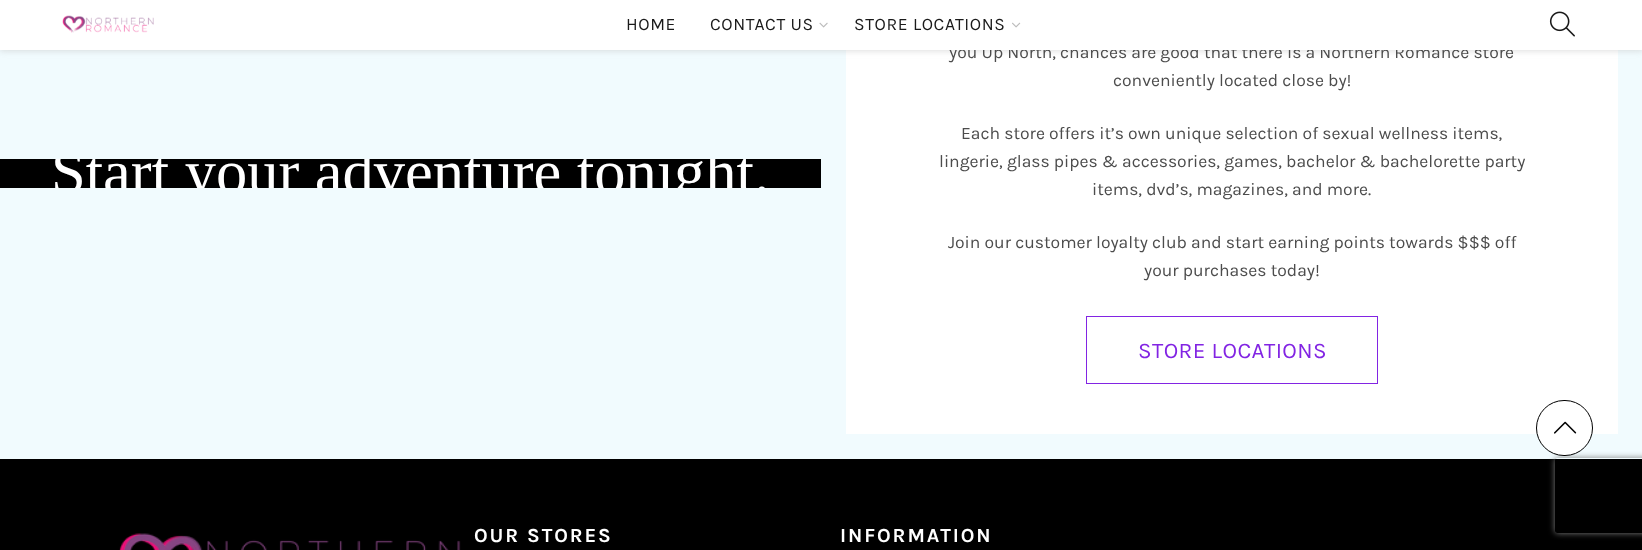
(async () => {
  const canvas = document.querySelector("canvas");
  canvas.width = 1642;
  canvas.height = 550;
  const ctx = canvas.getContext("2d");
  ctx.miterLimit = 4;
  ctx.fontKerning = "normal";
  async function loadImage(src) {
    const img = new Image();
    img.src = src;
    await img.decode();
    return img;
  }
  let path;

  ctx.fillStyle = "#000000";
  ctx.fillRect(0, 0, 1642, 550);
  ctx.fillStyle = "#f1fbfe";
  ctx.fillRect(0, 50, 1642, 409);
  ctx.fillStyle = "#ffffff";
  ctx.fillRect(846, 50, 772, 384);
  ctx.fillStyle = "rgba(190, 190, 190, 0.5)";
  ctx.filter = "blur(3px)";
  ctx.beginPath();
  ctx.rect(0, 1, 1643, 50);
  ctx.fill();
  ctx.filter = "none";
  ctx.fillStyle = "#000000";
  ctx.fillRect(0, 159, 821, 29);
  ctx.strokeStyle = "#8224e3";
  ctx.strokeRect(1086.5, 316.5, 291, 67);
  ctx.drawImage(await loadImage("img/5.png"), 119, 533, 342, 17);
  ctx.save();
  path = new Path2D("M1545 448H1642V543H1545ZM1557.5 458H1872.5C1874 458 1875 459 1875 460.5V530.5C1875 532 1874 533 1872.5 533H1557.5C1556 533 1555 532 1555 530.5V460.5C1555 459 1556 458 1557.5 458Z");
  ctx.clip(path, "evenodd");
  ctx.fillStyle = "#808080";
  ctx.filter = "blur(3px)";
  ctx.beginPath();
  ctx.roundRect(1555, 458, 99, 75, 2.5);
  ctx.fill();
  ctx.filter = "none";
  ctx.restore();
  ctx.fillStyle = "#ffffff";
  ctx.beginPath();
  ctx.roundRect(1536.5, 400.5, 56, 55, 27.5);
  ctx.fill();
  ctx.strokeStyle = "#000000";
  ctx.stroke();
  ctx.drawImage(await loadImage("img/6.png"), 1554, 421, 23, 13);
  ctx.save();
  ctx.beginPath();
  ctx.rect(0, 159, 821, 29);
  ctx.clip();
  ctx.font = "62.5px Liberation Serif";
  ctx.fillText("Start your adventure tonight.", 51, 193);
  ctx.restore();
  ctx.font = "17.5px Karla";
  ctx.fillStyle = "#4c4c4c";
  ctx.fillText("you Up North, chances are good that there is a Northern Romance store", 949, 58);
  ctx.fillStyle = "#ffffff";
  ctx.fillRect(0, 0, 1642, 50);
  ctx.drawImage(await loadImage("img/4.png"), 1549, 11, 26, 26);
  ctx.drawImage(await loadImage("img/3.png"), 1012, 22, 9, 6);
  ctx.letterSpacing = "0.6px";
  ctx.fillStyle = "#1a1a1a";
  ctx.fillText("STORE LOCATIONS", 854, 30);
  ctx.drawImage(await loadImage("img/2.png"), 819, 22, 9, 6);
  ctx.fillText("CONTACT US", 710, 30);
  ctx.fillText("HOME", 626, 30);
  ctx.drawImage(await loadImage("img/1.png"), 62, 15, 92, 18);
  ctx.letterSpacing = "0px";
  ctx.fillStyle = "#4c4c4c";
  for (const [text, x, y] of [
    ["conveniently located close by!", 1113, 86],
    ["Each store offers it’s own unique selection of sexual wellness items,", 961, 139],
    ["lingerie, glass pipes & accessories, games, bachelor & bachelorette party", 939, 167],
    ["items, dvd’s, magazines, and more.", 1092, 195],
    ["Join our customer loyalty club and start earning points towards $$$ off", 948, 248],
    ["your purchases today!", 1144, 276],
  ]) {
    ctx.fillText(text, x, y);
  }
  ctx.letterSpacing = "0.4px";
  ctx.font = "22.5px Karla";
  ctx.fillStyle = "#8224e3";
  ctx.fillText("STORE LOCATIONS", 1138, 358);
  ctx.letterSpacing = "1.9px";
  ctx.font = "bold 20px Karla";
  ctx.fillStyle = "#ffffff";
  ctx.fillText("OUR STORES", 474, 542);
  ctx.fillText("INFORMATION", 840, 542);
})();
